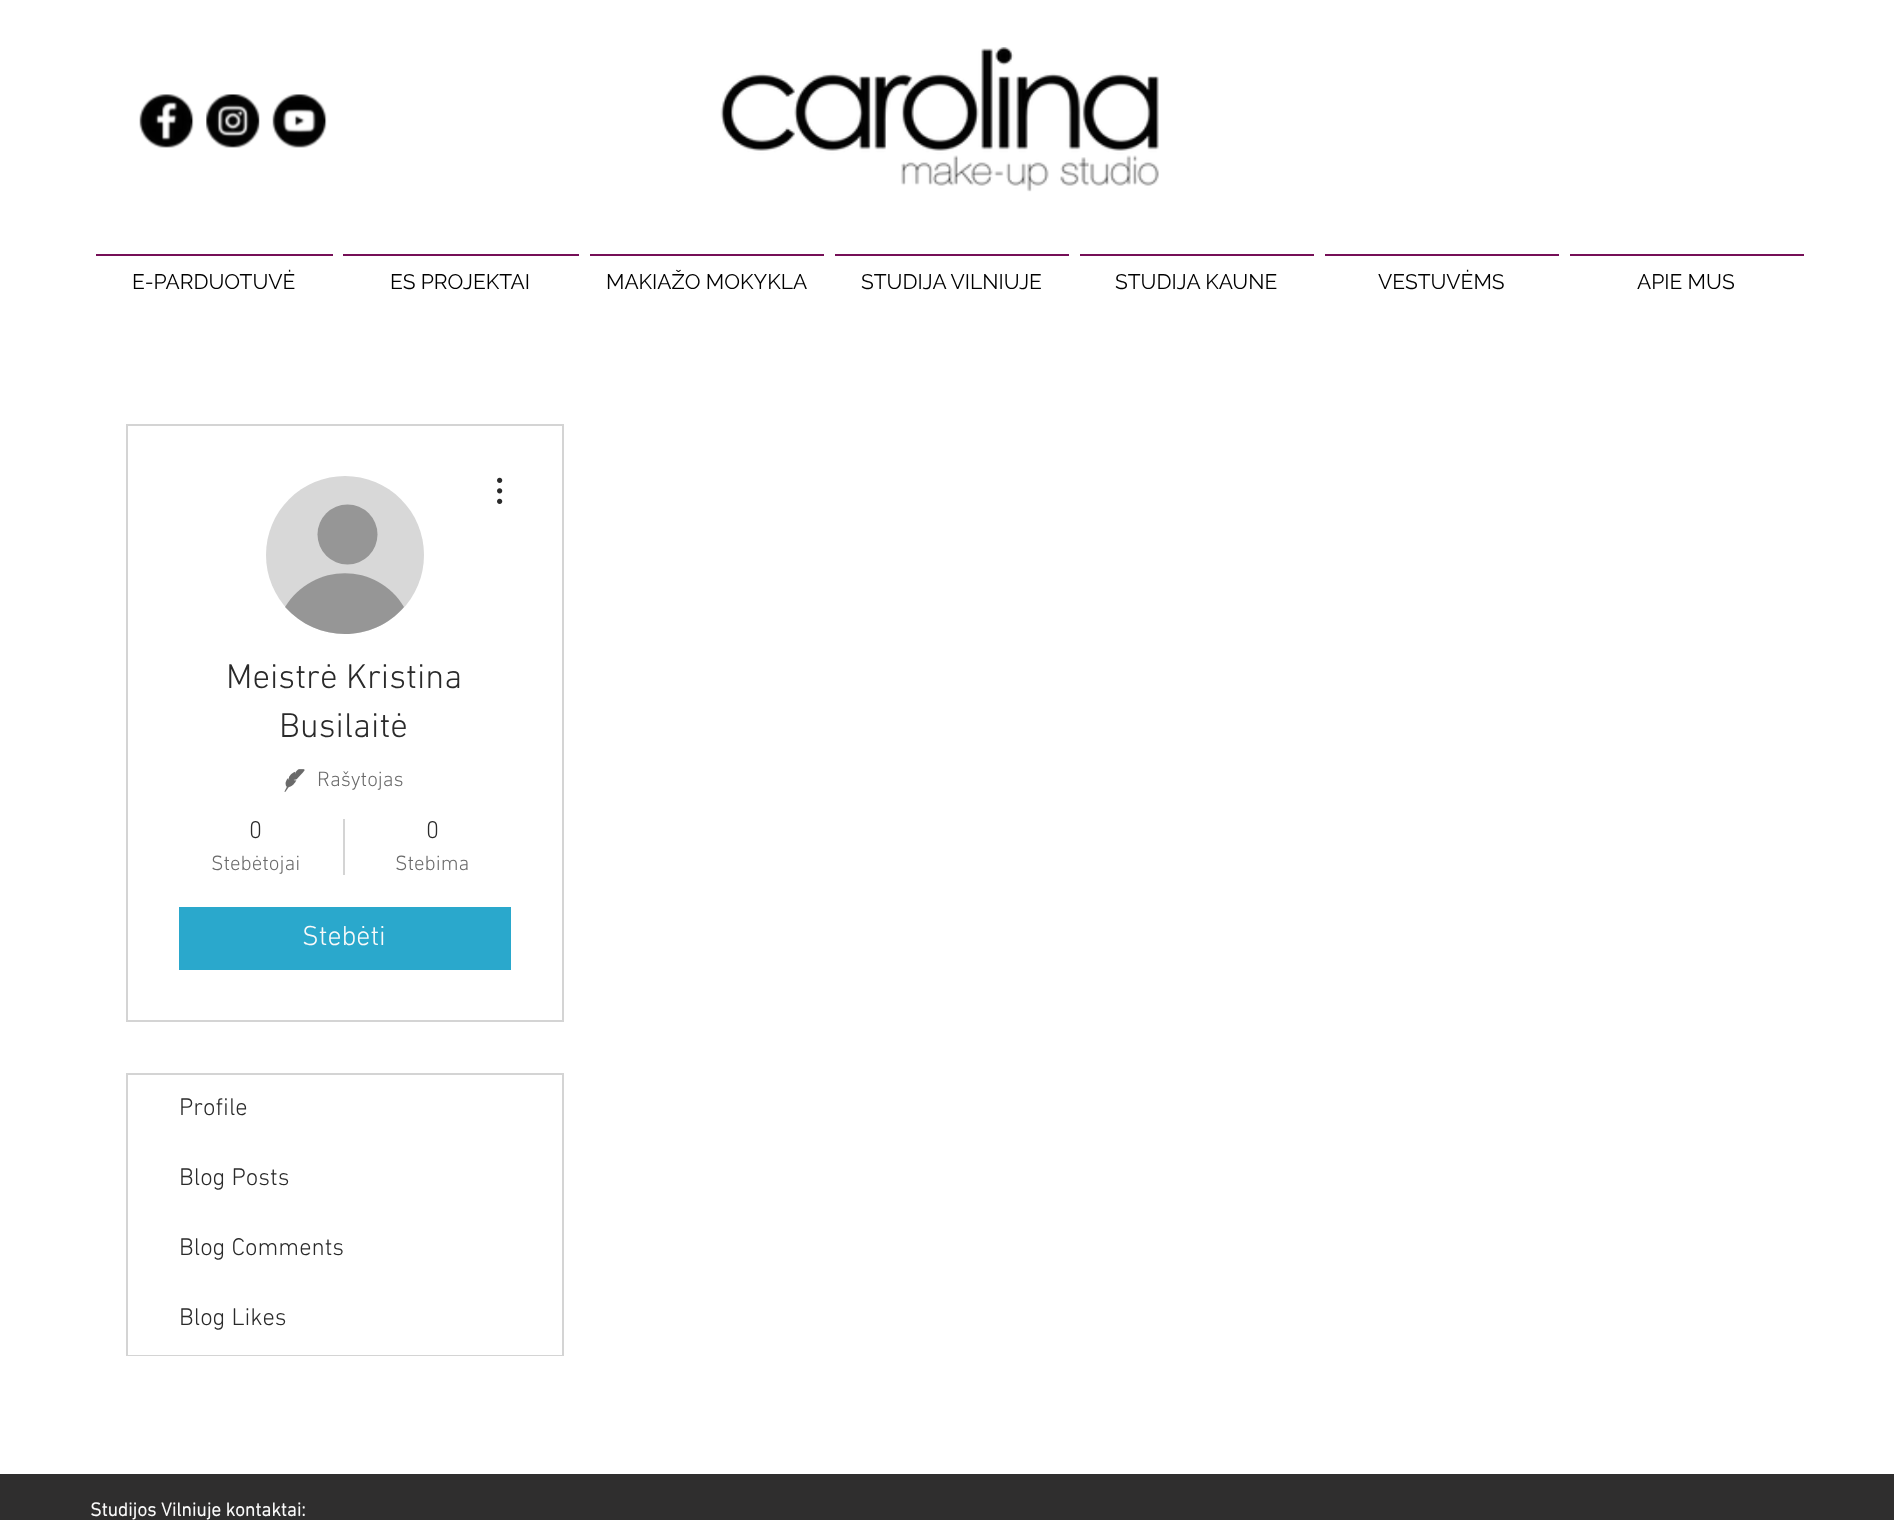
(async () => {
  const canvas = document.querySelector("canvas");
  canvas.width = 1894;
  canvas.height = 1520;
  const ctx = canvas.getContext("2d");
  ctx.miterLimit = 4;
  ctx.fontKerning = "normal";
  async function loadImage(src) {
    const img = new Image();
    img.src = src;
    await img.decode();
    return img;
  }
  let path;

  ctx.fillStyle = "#ffffff";
  ctx.fillRect(0, 0, 1894, 1520);
  ctx.drawImage(await loadImage("img/1.png"), 139, 94, 55, 54);
  ctx.drawImage(await loadImage("img/2.png"), 206, 94, 54, 54);
  ctx.drawImage(await loadImage("img/3.png"), 272, 94, 55, 54);
  ctx.drawImage(await loadImage("img/4.png"), 720, 47, 439, 145);
  for (const [x, y, w, h, color] of [
    [96, 254, 237, 2, "#750f57"],
    [343, 254, 236, 2, "#750f57"],
    [590, 254, 234, 2, "#750f57"],
    [835, 254, 234, 2, "#750f57"],
    [1080, 254, 234, 2, "#750f57"],
    [1325, 254, 234, 2, "#750f57"],
    [1570, 254, 234, 2, "#750f57"],
  ]) {
    ctx.fillStyle = color;
    ctx.fillRect(x, y, w, h);
  }
  ctx.strokeStyle = "#d4d4d4";
  ctx.lineWidth = 2;
  ctx.strokeRect(127, 425, 436, 596);
  ctx.fillStyle = "#d8d8d8";
  ctx.beginPath();
  ctx.arc(345, 555, 79, 0, Math.PI * 2);
  ctx.fill();
  ctx.fillStyle = "#969696";
  ctx.beginPath();
  ctx.arc(347.5, 534.5, 30, 0, Math.PI * 2);
  ctx.fill();
  path = new Path2D("M404 607C373 643 317 643 285 607C313 562 377 562 404 607Z");
  ctx.fill(path);
  ctx.drawImage(await loadImage("img/5.png"), 497, 477, 6, 27);
  ctx.drawImage(await loadImage("img/6.png"), 284, 769, 21, 23);
  ctx.fillStyle = "#d4d4d4";
  ctx.fillRect(343, 819, 2, 56);
  ctx.fillStyle = "#2aa8cc";
  ctx.fillRect(179, 907, 332, 63);
  ctx.strokeRect(127, 1074, 436, 281);
  ctx.fillStyle = "#ffffff";
  ctx.fillRect(128, 1354, 434, 1);
  ctx.fillStyle = "#2f2e2e";
  ctx.fillRect(0, 1474, 1894, 46);
  ctx.font = "21px Raleway";
  ctx.fillStyle = "#000000";
  for (const [text, x, y] of [
    ["E-PARDUOTUVĖ", 132, 289],
    ["ES PROJEKTAI", 390, 289],
    ["MAKIAŽO MOKYKLA", 606, 289],
    ["STUDIJA VILNIUJE", 861, 289],
    ["STUDIJA KAUNE", 1115, 289],
    ["VESTUVĖMS", 1378, 289],
    ["APIE MUS", 1637, 289],
  ]) {
    ctx.fillText(text, x, y);
  }
  ctx.font = "300 35px 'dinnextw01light'";
  ctx.fillStyle = "#2a2a2a";
  ctx.fillText("Meistrė Kristina", 226, 688);
  ctx.fillText("Busilaitė", 279, 737);
  ctx.font = "300 21px 'dinnextw01light'";
  ctx.fillStyle = "#6a6a6a";
  ctx.fillText("Rašytojas", 317, 786);
  ctx.font = "300 24.5px 'dinnextw01light'";
  ctx.fillStyle = "#2a2a2a";
  ctx.fillText("0", 249, 838);
  ctx.font = "300 21px 'dinnextw01light'";
  ctx.fillStyle = "#6a6a6a";
  ctx.fillText("Stebėtojai", 211, 870);
  ctx.font = "300 24.5px 'dinnextw01light'";
  ctx.fillStyle = "#2a2a2a";
  ctx.fillText("0", 426, 838);
  ctx.font = "300 21px 'dinnextw01light'";
  ctx.fillStyle = "#6a6a6a";
  ctx.fillText("Stebima", 395, 870);
  ctx.font = "300 28px 'dinnextw01light'";
  ctx.fillStyle = "#fafafa";
  ctx.fillText("Stebėti", 302, 945);
  ctx.font = "300 24.5px 'dinnextw01light'";
  ctx.fillStyle = "#2a2a2a";
  for (const [text, x, y] of [
    ["Profile", 179, 1115],
    ["Blog Posts", 179, 1185],
    ["Blog Comments", 179, 1255],
    ["Blog Likes", 179, 1325],
  ]) {
    ctx.fillText(text, x, y);
  }
  ctx.font = "bold 19.25px 'dinnextw01light'";
  ctx.fillStyle = "#fafafa";
  ctx.fillText("Studijos Vilniuje kontaktai:", 90, 1516);
})();
